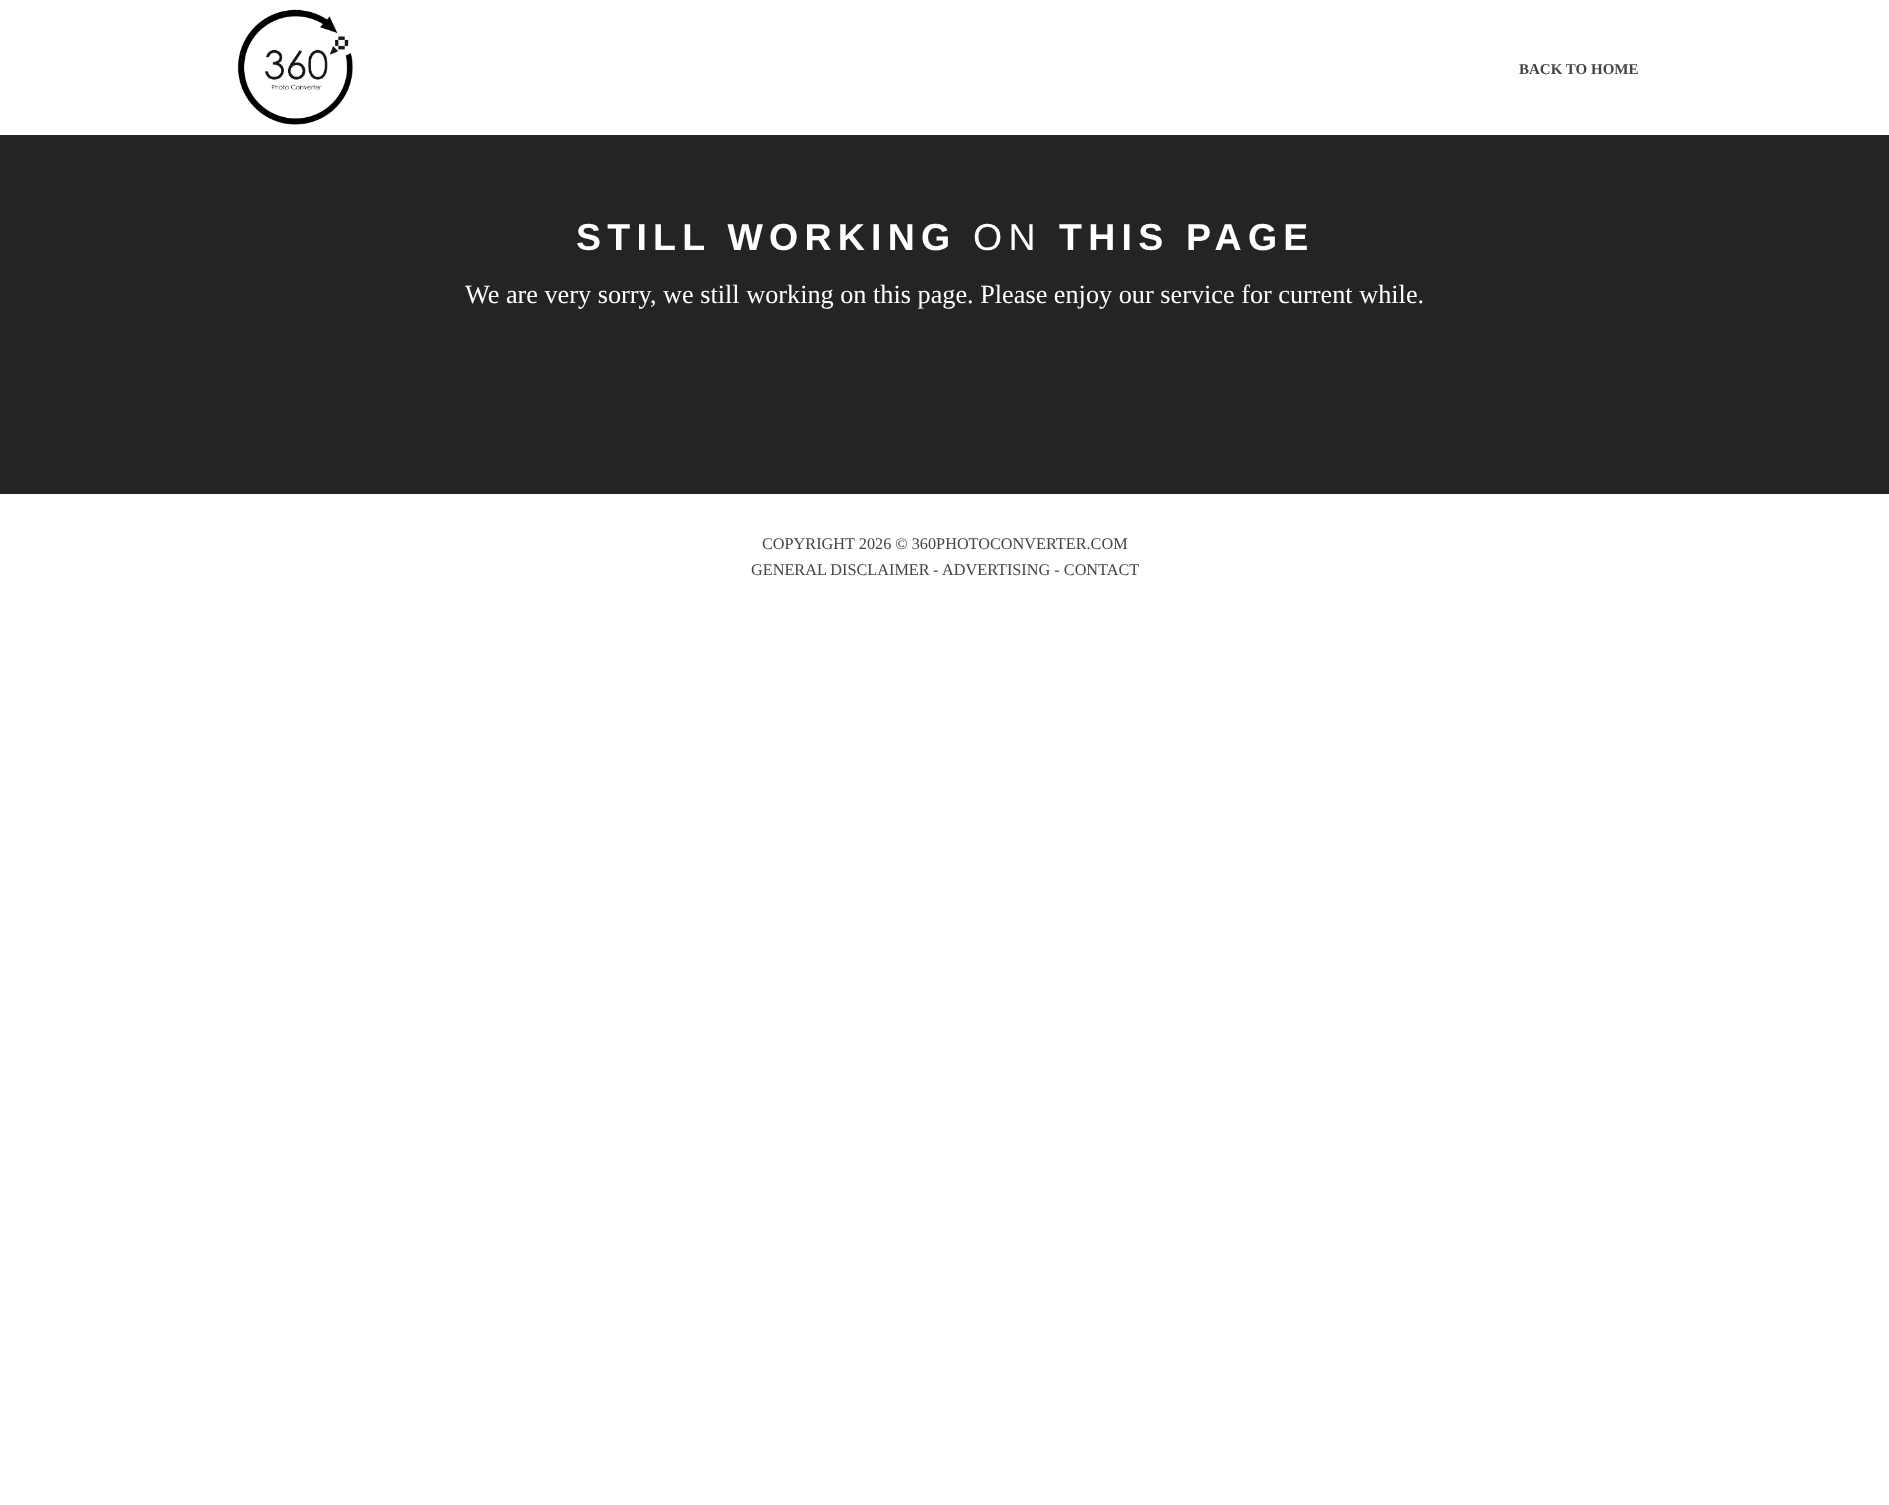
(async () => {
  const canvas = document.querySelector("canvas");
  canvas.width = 1889;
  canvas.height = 1505;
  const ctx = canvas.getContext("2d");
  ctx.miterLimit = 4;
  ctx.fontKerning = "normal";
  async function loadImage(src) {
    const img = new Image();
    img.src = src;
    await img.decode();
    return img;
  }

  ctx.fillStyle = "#ffffff";
  ctx.fillRect(0, 0, 1889, 1505);
  ctx.drawImage(await loadImage("img/1.png"), 237, 9, 116, 116);
  ctx.fillStyle = "#242424";
  ctx.fillRect(0, 135, 1889, 359);
  ctx.font = "bold 15px Liberation Serif";
  ctx.fillStyle = "#444444";
  ctx.fillText("BACK TO HOME", 1519, 74);
  ctx.letterSpacing = "6.25px";
  ctx.font = "bold 37.5px Liberation Sans";
  ctx.fillStyle = "#ffffff";
  ctx.fillText("STILL WORKING", 576, 250);
  ctx.font = "37.5px Liberation Sans";
  ctx.fillText("ON", 973, 250);
  ctx.font = "bold 37.5px Liberation Sans";
  ctx.fillText("THIS PAGE", 1059, 250);
  ctx.letterSpacing = "0px";
  ctx.font = "26.25px Liberation Serif";
  ctx.fillText("We are very sorry, we still working on this page. Please enjoy our service for current while.", 465, 303);
  ctx.font = "16.25px Liberation Serif";
  ctx.fillStyle = "#444444";
  for (const [text, x, y] of [
    ["COPYRIGHT 2026 © 360PHOTOCONVERTER.COM", 762, 549],
    ["GENERAL DISCLAIMER", 751, 575],
    ["-", 933, 575],
    ["ADVERTISING - CONTACT", 942, 575],
  ]) {
    ctx.fillText(text, x, y);
  }
})();
